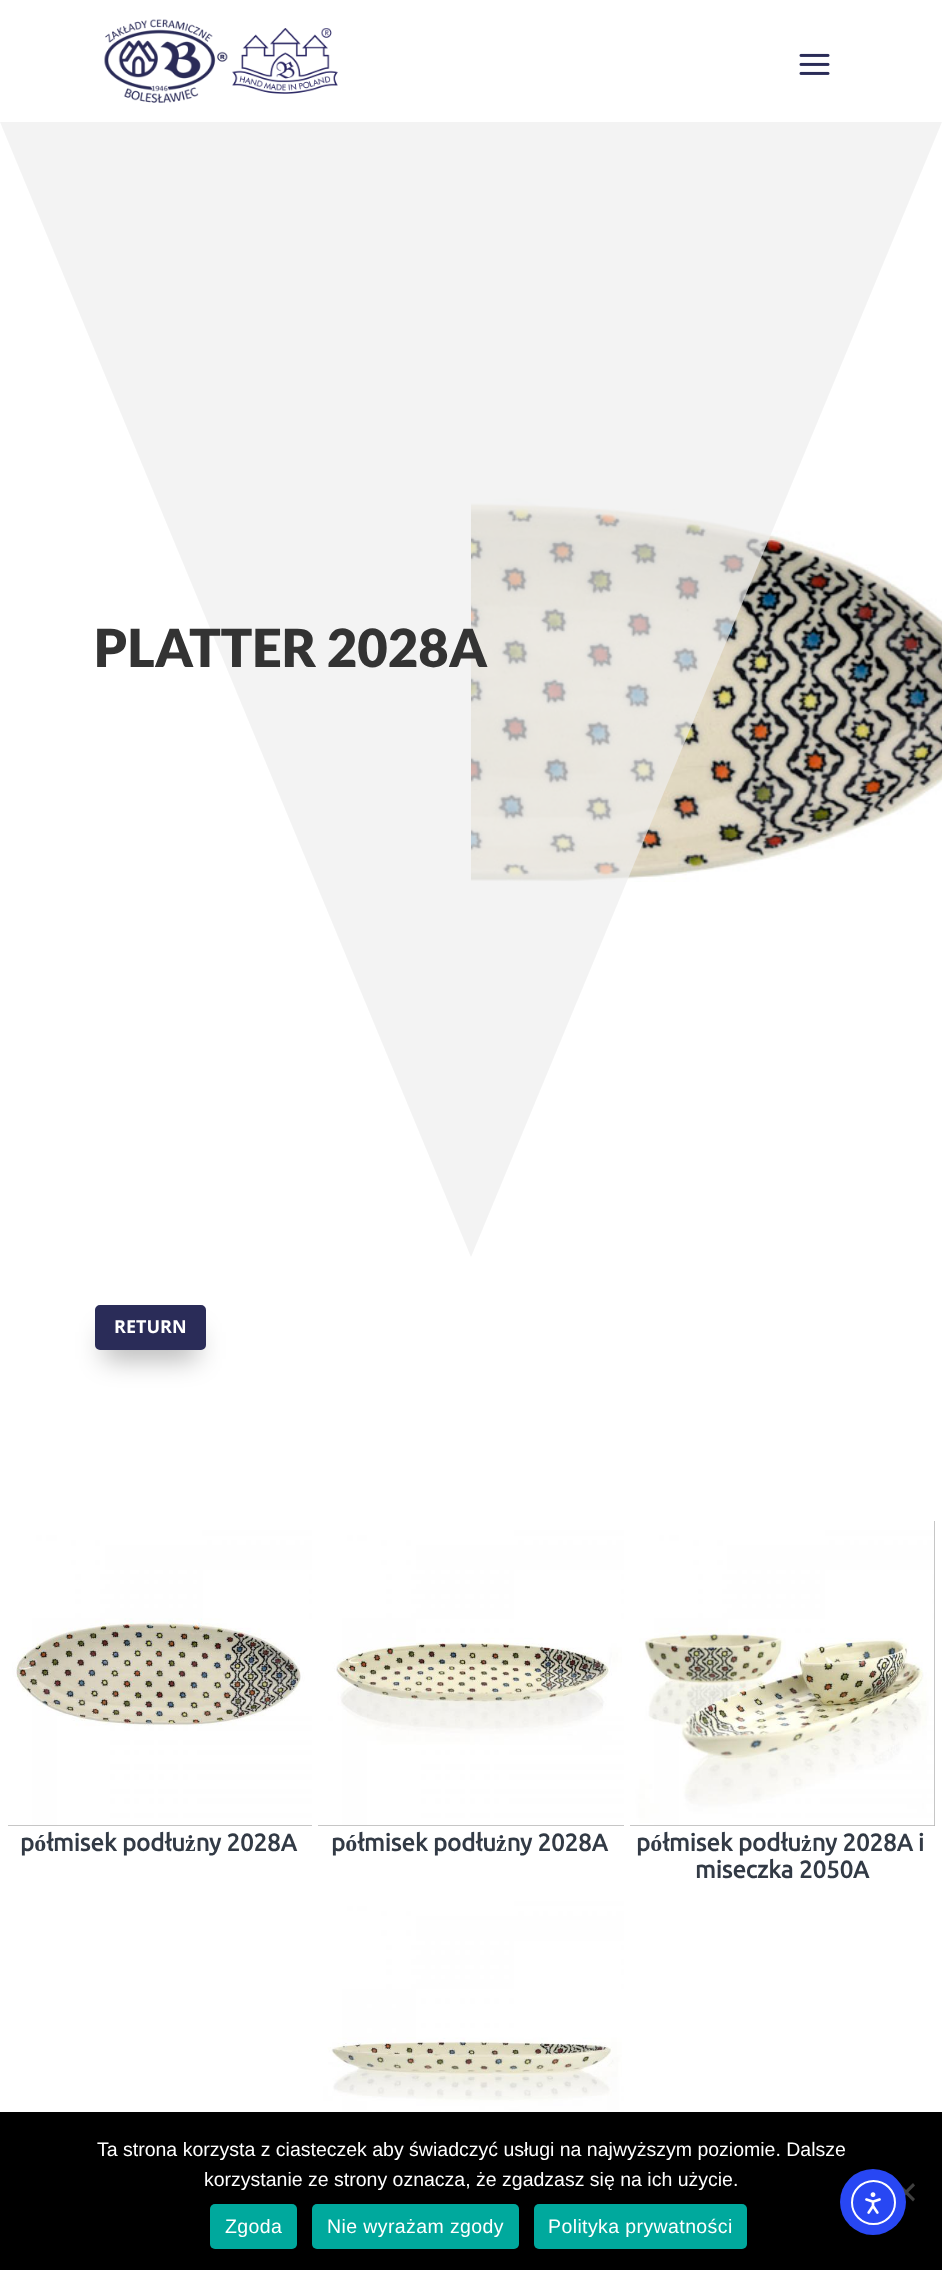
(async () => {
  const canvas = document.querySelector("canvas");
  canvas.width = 942;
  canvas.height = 2270;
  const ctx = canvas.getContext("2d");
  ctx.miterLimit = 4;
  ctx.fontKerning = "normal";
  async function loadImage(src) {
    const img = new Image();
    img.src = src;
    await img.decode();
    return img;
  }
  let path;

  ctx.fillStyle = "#ffffff";
  ctx.fillRect(0, 0, 942, 2270);
  ctx.drawImage(await loadImage("img/1.png"), 104, 19, 234, 84);
  ctx.drawImage(await loadImage("img/2.png"), 799, 53, 31, 22);
  ctx.drawImage(await loadImage("img/3.png"), 471, 498, 471, 384);
  ctx.fillStyle = "rgba(238, 238, 238, 0.7)";
  path = new Path2D("M471 1257L942 122H0Z");
  ctx.fill(path);
  ctx.fillStyle = "rgba(0, 0, 0, 0.3)";
  ctx.filter = "blur(13.5px)";
  ctx.beginPath();
  ctx.rect(104, 1332, 93, 27);
  ctx.fill();
  ctx.filter = "none";
  ctx.fillStyle = "#2a2c58";
  ctx.beginPath();
  ctx.roundRect(96, 1306, 109, 43, 4);
  ctx.fill();
  ctx.strokeStyle = "#2a2c58";
  ctx.lineWidth = 2;
  ctx.stroke();
  ctx.fillStyle = "#b3b3b3";
  ctx.fillRect(8, 1825, 304, 1);
  ctx.drawImage(await loadImage("img/4.png"), 8, 1521, 304, 305);
  ctx.fillRect(318, 1825, 306, 1);
  ctx.drawImage(await loadImage("img/5.png"), 318, 1521, 306, 305);
  ctx.fillRect(630, 1521, 305, 305);
  ctx.drawImage(await loadImage("img/6.png"), 630, 1521, 305, 305);
  ctx.drawImage(await loadImage("img/7.png"), 318, 1892, 306, 220);
  ctx.fillStyle = "#000000";
  ctx.fillRect(0, 2112, 942, 158);
  ctx.fillStyle = "#404040";
  path = new Path2D("M913 2183L915 2185.5L899 2201.5L897 2199Z");
  ctx.fill(path);
  path = new Path2D("M897 2185.5L899 2183L915 2199L913 2201.5Z");
  ctx.fill(path);
  ctx.fillStyle = "#00a99d";
  ctx.beginPath();
  ctx.roundRect(210, 2204, 87, 45, 5);
  ctx.fill();
  ctx.beginPath();
  ctx.roundRect(312, 2204, 207, 45, 5);
  ctx.fill();
  ctx.beginPath();
  ctx.roundRect(534, 2204, 213, 45, 5);
  ctx.fill();
  ctx.fillStyle = "#2847f3";
  ctx.beginPath();
  ctx.arc(873, 2202, 33, 0, Math.PI * 2);
  ctx.fill();
  ctx.beginPath();
  ctx.arc(873.5, 2202.5, 21.5, 0, Math.PI * 2);
  ctx.strokeStyle = "#ffffff";
  ctx.stroke();
  ctx.drawImage(await loadImage("img/8.png"), 865, 2192, 16, 22);
  ctx.font = "900 52.5px Lato";
  ctx.fillStyle = "#333333";
  ctx.fillText("PLATTER 2028A", 94, 667);
  ctx.font = "bold 18px Open Sans";
  ctx.fillStyle = "#ffffff";
  ctx.fillText("RETURN", 114, 1333);
  ctx.font = "bold 24px Ubuntu";
  ctx.fillStyle = "#323a45";
  for (const [text, x, y] of [
    ["półmisek podłużny 2028A", 20, 1851],
    ["półmisek podłużny 2028A", 331, 1851],
    ["półmisek podłużny 2028A i", 636, 1851],
    ["miseczka 2050A", 695, 1878],
  ]) {
    ctx.fillText(text, x, y);
  }
  ctx.font = "19.5px Liberation Sans";
  ctx.fillStyle = "#ffffff";
  ctx.fillText("Ta strona korzysta z ciasteczek aby świadczyć usługi na najwyższym poziomie. Dalsze", 97, 2156);
  ctx.fillText("korzystanie ze strony oznacza, że zgadzasz się na ich użycie.", 204, 2186);
  ctx.letterSpacing = "0.4px";
  for (const [text, x, y] of [
    ["Zgoda", 225, 2233],
    ["Nie wyrażam zgody", 327, 2233],
    ["Polityka prywatności", 548, 2233],
  ]) {
    ctx.fillText(text, x, y);
  }
})();
